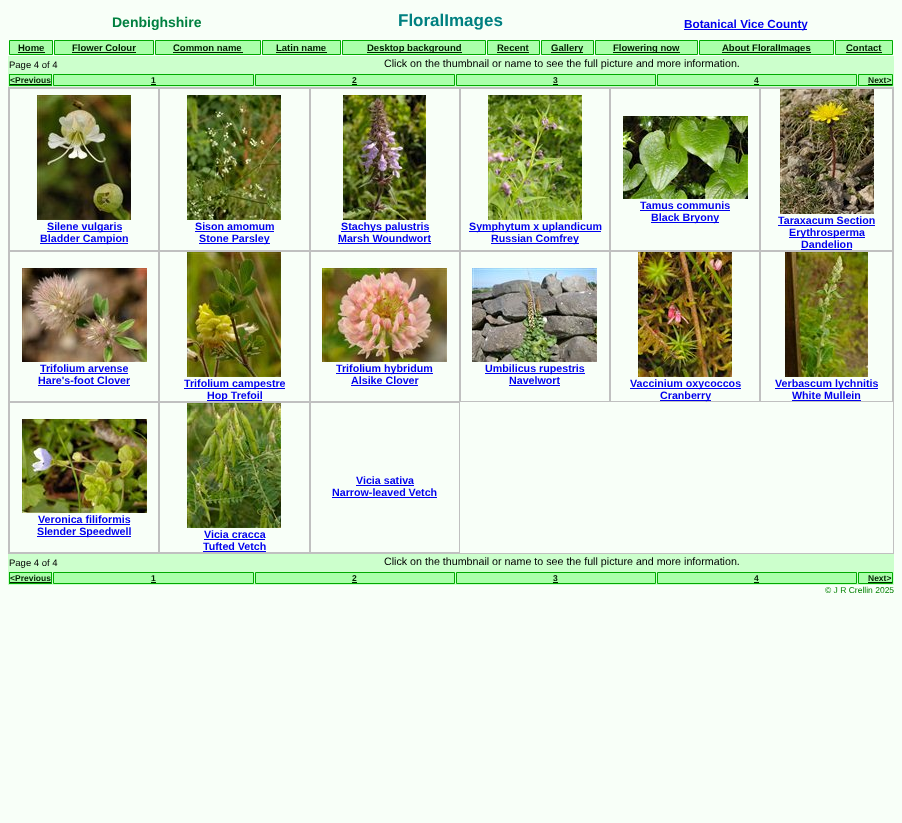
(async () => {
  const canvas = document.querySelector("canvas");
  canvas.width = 902;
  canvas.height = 823;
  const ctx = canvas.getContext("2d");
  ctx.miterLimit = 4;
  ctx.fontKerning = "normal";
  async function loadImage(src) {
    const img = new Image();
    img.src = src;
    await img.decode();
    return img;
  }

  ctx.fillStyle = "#f8fff8";
  ctx.fillRect(0, 0, 902, 823);
  ctx.fillStyle = "#0000ee";
  ctx.fillRect(684, 29, 123, 1);
  ctx.fillStyle = "#aaffaa";
  ctx.beginPath();
  ctx.rect(9.5, 40.5, 43, 14);
  ctx.fill();
  ctx.strokeStyle = "#00aa00";
  ctx.stroke();
  ctx.fillStyle = "#002000";
  ctx.fillRect(18, 52, 27, 1);
  ctx.fillStyle = "#aaffaa";
  ctx.beginPath();
  ctx.rect(54.5, 40.5, 99, 14);
  ctx.fill();
  ctx.stroke();
  ctx.fillStyle = "#002000";
  ctx.fillRect(72, 52, 64, 1);
  ctx.fillStyle = "#aaffaa";
  ctx.beginPath();
  ctx.rect(155.5, 40.5, 105, 14);
  ctx.fill();
  ctx.stroke();
  ctx.fillStyle = "#002000";
  ctx.fillRect(173, 52, 70, 1);
  ctx.fillStyle = "#aaffaa";
  ctx.beginPath();
  ctx.rect(262.5, 40.5, 78, 14);
  ctx.fill();
  ctx.stroke();
  ctx.fillStyle = "#002000";
  ctx.fillRect(276, 52, 51, 1);
  ctx.fillStyle = "#aaffaa";
  ctx.beginPath();
  ctx.rect(342.5, 40.5, 143, 14);
  ctx.fill();
  ctx.stroke();
  ctx.fillStyle = "#002000";
  ctx.fillRect(367, 52, 95, 1);
  ctx.fillStyle = "#aaffaa";
  ctx.beginPath();
  ctx.rect(487.5, 40.5, 52, 14);
  ctx.fill();
  ctx.stroke();
  ctx.fillStyle = "#002000";
  ctx.fillRect(497, 52, 32, 1);
  ctx.fillStyle = "#aaffaa";
  ctx.beginPath();
  ctx.rect(541.5, 40.5, 52, 14);
  ctx.fill();
  ctx.stroke();
  ctx.fillStyle = "#002000";
  ctx.fillRect(551, 52, 32, 1);
  ctx.fillStyle = "#aaffaa";
  ctx.beginPath();
  ctx.rect(595.5, 40.5, 102, 14);
  ctx.fill();
  ctx.stroke();
  ctx.fillStyle = "#002000";
  ctx.fillRect(613, 52, 67, 1);
  ctx.fillStyle = "#aaffaa";
  ctx.beginPath();
  ctx.rect(699.5, 40.5, 134, 14);
  ctx.fill();
  ctx.stroke();
  ctx.fillStyle = "#002000";
  ctx.fillRect(722, 52, 89, 1);
  ctx.fillStyle = "#aaffaa";
  ctx.beginPath();
  ctx.rect(835.5, 40.5, 57, 14);
  ctx.fill();
  ctx.stroke();
  for (const [x, y, w, h, color] of [
    [846, 52, 36, 1, "#002000"],
    [8, 56, 886, 31, "#ccffcc"],
    [10, 75, 41, 9, "#aaffaa"],
  ]) {
    ctx.fillStyle = color;
    ctx.fillRect(x, y, w, h);
  }
  ctx.strokeRect(9.5, 74.5, 42, 11);
  ctx.fillStyle = "#002000";
  ctx.fillRect(10, 84, 41, 1);
  ctx.fillStyle = "#aaffaa";
  ctx.beginPath();
  ctx.rect(53.5, 74.5, 200, 11);
  ctx.fill();
  ctx.stroke();
  ctx.fillStyle = "#002000";
  ctx.fillRect(151, 84, 5, 1);
  ctx.fillStyle = "#aaffaa";
  ctx.beginPath();
  ctx.rect(255.5, 74.5, 199, 11);
  ctx.fill();
  ctx.stroke();
  ctx.fillStyle = "#002000";
  ctx.fillRect(352, 84, 5, 1);
  ctx.fillStyle = "#aaffaa";
  ctx.beginPath();
  ctx.rect(456.5, 74.5, 199, 11);
  ctx.fill();
  ctx.stroke();
  ctx.fillStyle = "#002000";
  ctx.fillRect(553, 84, 5, 1);
  ctx.fillStyle = "#aaffaa";
  ctx.beginPath();
  ctx.rect(657.5, 74.5, 199, 11);
  ctx.fill();
  ctx.stroke();
  ctx.fillStyle = "#002000";
  ctx.fillRect(754, 84, 5, 1);
  ctx.fillStyle = "#aaffaa";
  ctx.beginPath();
  ctx.rect(858.5, 74.5, 34, 11);
  ctx.fill();
  ctx.stroke();
  ctx.fillStyle = "#002000";
  ctx.fillRect(868, 84, 24, 1);
  ctx.strokeStyle = "#c0c0c0";
  ctx.strokeRect(8.5, 87.5, 885, 466);
  ctx.strokeRect(610.5, 88.5, 149, 162);
  ctx.drawImage(await loadImage("img/1.png"), 623, 116, 125, 83);
  ctx.fillStyle = "#0000ee";
  ctx.fillRect(640, 210, 90, 1);
  ctx.fillRect(651, 222, 68, 1);
  ctx.strokeRect(9.5, 88.5, 149, 162);
  ctx.drawImage(await loadImage("img/2.png"), 37, 95, 94, 125);
  ctx.fillRect(47, 231, 75, 1);
  ctx.fillRect(40, 243, 88, 1);
  ctx.strokeRect(159.5, 88.5, 150, 162);
  ctx.drawImage(await loadImage("img/3.png"), 187, 95, 94, 125);
  ctx.fillRect(195, 231, 79, 1);
  ctx.fillRect(199, 243, 71, 1);
  ctx.strokeRect(310.5, 88.5, 149, 162);
  ctx.drawImage(await loadImage("img/4.png"), 343, 95, 83, 125);
  ctx.fillRect(341, 231, 88, 1);
  ctx.fillRect(338, 243, 93, 1);
  ctx.strokeRect(460.5, 88.5, 149, 162);
  ctx.drawImage(await loadImage("img/5.png"), 488, 95, 94, 125);
  ctx.fillRect(469, 231, 132, 1);
  ctx.fillRect(491, 243, 88, 1);
  ctx.strokeRect(760.5, 88.5, 132, 162);
  ctx.drawImage(await loadImage("img/6.png"), 780, 89, 94, 125);
  for (const [x, y, w, h, color] of [
    [778, 225, 97, 1, "#0000ee"],
    [789, 237, 76, 1, "#0000ee"],
    [801, 249, 51, 1, "#0000ee"],
  ]) {
    ctx.fillStyle = color;
    ctx.fillRect(x, y, w, h);
  }
  ctx.strokeRect(9.5, 251.5, 149, 150);
  ctx.drawImage(await loadImage("img/7.png"), 22, 268, 125, 94);
  ctx.fillRect(40, 373, 88, 1);
  ctx.fillRect(38, 385, 92, 1);
  ctx.strokeRect(310.5, 251.5, 149, 150);
  ctx.drawImage(await loadImage("img/8.png"), 322, 268, 125, 94);
  ctx.fillRect(336, 373, 97, 1);
  ctx.fillRect(351, 385, 67, 1);
  ctx.strokeRect(460.5, 251.5, 149, 150);
  ctx.drawImage(await loadImage("img/9.png"), 472, 268, 125, 94);
  ctx.fillRect(485, 373, 100, 1);
  ctx.fillRect(509, 385, 51, 1);
  ctx.strokeRect(159.5, 251.5, 150, 150);
  ctx.drawImage(await loadImage("img/10.png"), 187, 252, 94, 125);
  ctx.fillRect(184, 388, 101, 1);
  ctx.fillRect(207, 400, 55, 1);
  ctx.strokeRect(610.5, 251.5, 149, 150);
  ctx.drawImage(await loadImage("img/11.png"), 638, 252, 94, 125);
  ctx.fillRect(630, 388, 111, 1);
  ctx.fillRect(660, 400, 51, 1);
  ctx.strokeRect(760.5, 251.5, 132, 150);
  ctx.drawImage(await loadImage("img/12.png"), 785, 252, 83, 125);
  ctx.fillRect(775, 388, 103, 1);
  ctx.fillRect(792, 400, 69, 1);
  ctx.strokeRect(310.5, 402.5, 149, 150);
  ctx.fillRect(356, 485, 58, 1);
  ctx.fillRect(332, 497, 105, 1);
  ctx.strokeRect(9.5, 402.5, 149, 150);
  ctx.drawImage(await loadImage("img/13.png"), 22, 419, 125, 94);
  ctx.fillRect(38, 524, 92, 1);
  ctx.fillRect(37, 536, 94, 1);
  ctx.strokeRect(159.5, 402.5, 150, 150);
  ctx.drawImage(await loadImage("img/14.png"), 187, 403, 94, 125);
  for (const [x, y, w, h, color] of [
    [204, 539, 61, 1, "#0000ee"],
    [203, 551, 63, 1, "#0000ee"],
    [8, 554, 886, 31, "#ccffcc"],
    [10, 573, 41, 9, "#aaffaa"],
  ]) {
    ctx.fillStyle = color;
    ctx.fillRect(x, y, w, h);
  }
  ctx.strokeStyle = "#00aa00";
  ctx.strokeRect(9.5, 572.5, 42, 11);
  ctx.fillStyle = "#002000";
  ctx.fillRect(10, 582, 41, 1);
  ctx.fillStyle = "#aaffaa";
  ctx.beginPath();
  ctx.rect(53.5, 572.5, 200, 11);
  ctx.fill();
  ctx.stroke();
  ctx.fillStyle = "#002000";
  ctx.fillRect(151, 582, 5, 1);
  ctx.fillStyle = "#aaffaa";
  ctx.beginPath();
  ctx.rect(255.5, 572.5, 199, 11);
  ctx.fill();
  ctx.stroke();
  ctx.fillStyle = "#002000";
  ctx.fillRect(352, 582, 5, 1);
  ctx.fillStyle = "#aaffaa";
  ctx.beginPath();
  ctx.rect(456.5, 572.5, 199, 11);
  ctx.fill();
  ctx.stroke();
  ctx.fillStyle = "#002000";
  ctx.fillRect(553, 582, 5, 1);
  ctx.fillStyle = "#aaffaa";
  ctx.beginPath();
  ctx.rect(657.5, 572.5, 199, 11);
  ctx.fill();
  ctx.stroke();
  ctx.fillStyle = "#002000";
  ctx.fillRect(754, 582, 5, 1);
  ctx.fillStyle = "#aaffaa";
  ctx.beginPath();
  ctx.rect(858.5, 572.5, 34, 11);
  ctx.fill();
  ctx.stroke();
  ctx.fillStyle = "#002000";
  ctx.fillRect(868, 582, 24, 1);
  ctx.font = "bold 14px Liberation Sans";
  ctx.fillStyle = "#008040";
  ctx.fillText("Denbighshire", 112, 27);
  ctx.font = "bold 17px Liberation Sans";
  ctx.fillStyle = "#008080";
  ctx.fillText("FloralImages", 398, 26);
  ctx.font = "bold 11.75px Liberation Sans";
  ctx.fillStyle = "#0000ee";
  ctx.fillText("Botanical Vice County", 684, 28);
  ctx.font = "bold 9.5px Liberation Sans";
  ctx.fillStyle = "#002000";
  for (const [text, x, y] of [
    ["Home", 18, 51],
    ["Flower Colour", 72, 51],
    ["Common name", 173, 51],
    ["Latin name", 276, 51],
    ["Desktop background", 367, 51],
    ["Recent", 497, 51],
    ["Gallery", 551, 51],
    ["Flowering now", 613, 51],
    ["About FloralImages", 722, 51],
    ["Contact", 846, 51],
  ]) {
    ctx.fillText(text, x, y);
  }
  ctx.font = "9.5px Liberation Sans";
  ctx.fillStyle = "#000000";
  ctx.fillText("Page 4 of 4", 9, 68);
  ctx.font = "10.7px Liberation Sans";
  ctx.fillText("Click on the thumbnail or name to see the full picture and more information.", 384, 67);
  ctx.font = "bold 8.5px Liberation Sans";
  ctx.fillStyle = "#002000";
  for (const [text, x, y] of [
    ["<Previous", 10, 83],
    ["1", 151, 83],
    ["2", 352, 83],
    ["3", 553, 83],
    ["4", 754, 83],
    ["Next>", 868, 83],
  ]) {
    ctx.fillText(text, x, y);
  }
  ctx.font = "bold 10.7px Liberation Sans";
  ctx.fillStyle = "#0000ee";
  for (const [text, x, y] of [
    ["Tamus communis", 640, 209],
    ["Black Bryony", 651, 221],
    ["Silene vulgaris", 47, 230],
    ["Bladder Campion", 40, 242],
    ["Sison amomum", 195, 230],
    ["Stone Parsley", 199, 242],
    ["Stachys palustris", 341, 230],
    ["Marsh Woundwort", 338, 242],
    ["Symphytum x uplandicum", 469, 230],
    ["Russian Comfrey", 491, 242],
    ["Taraxacum Section", 778, 224],
    ["Erythrosperma", 789, 236],
    ["Dandelion", 801, 248],
    ["Trifolium arvense", 40, 372],
    ["Hare's-foot Clover", 38, 384],
    ["Trifolium hybridum", 336, 372],
    ["Alsike Clover", 351, 384],
    ["Umbilicus rupestris", 485, 372],
    ["Navelwort", 509, 384],
    ["Trifolium campestre", 184, 387],
    ["Hop Trefoil", 207, 399],
    ["Vaccinium oxycoccos", 630, 387],
    ["Cranberry", 660, 399],
    ["Verbascum lychnitis", 775, 387],
    ["White Mullein", 792, 399],
    ["Vicia sativa", 356, 484],
    ["Narrow-leaved Vetch", 332, 496],
    ["Veronica filiformis", 38, 523],
    ["Slender Speedwell", 37, 535],
    ["Vicia cracca", 204, 538],
    ["Tufted Vetch", 203, 550],
  ]) {
    ctx.fillText(text, x, y);
  }
  ctx.font = "9.5px Liberation Sans";
  ctx.fillStyle = "#000000";
  ctx.fillText("Page 4 of 4", 9, 566);
  ctx.font = "10.7px Liberation Sans";
  ctx.fillText("Click on the thumbnail or name to see the full picture and more information.", 384, 565);
  ctx.font = "bold 8.5px Liberation Sans";
  ctx.fillStyle = "#002000";
  for (const [text, x, y] of [
    ["<Previous", 10, 581],
    ["1", 151, 581],
    ["2", 352, 581],
    ["3", 553, 581],
    ["4", 754, 581],
    ["Next>", 868, 581],
  ]) {
    ctx.fillText(text, x, y);
  }
  ctx.font = "8.5px Liberation Sans";
  ctx.fillStyle = "#008000";
  ctx.fillText("© J R Crellin 2025", 825, 593);
})();
